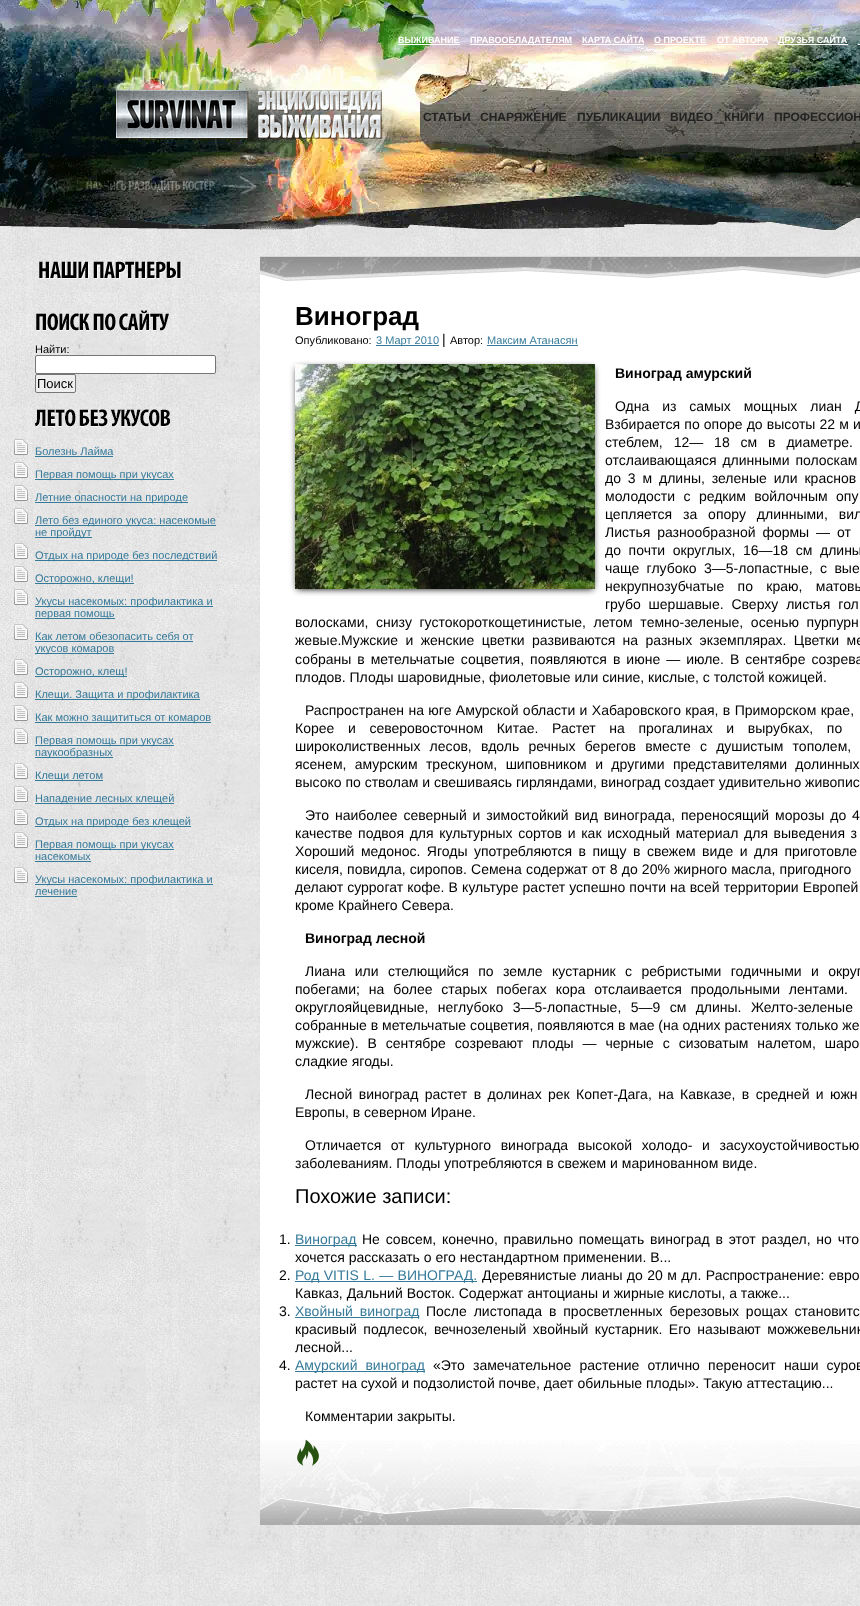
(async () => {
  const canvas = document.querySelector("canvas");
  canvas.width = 860;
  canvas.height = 1606;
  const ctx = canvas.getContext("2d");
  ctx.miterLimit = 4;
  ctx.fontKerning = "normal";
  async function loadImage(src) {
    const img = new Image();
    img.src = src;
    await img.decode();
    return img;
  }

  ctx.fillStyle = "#ffffff";
  ctx.fillRect(0, 0, 860, 1606);
  ctx.drawImage(await loadImage("img/1.png"), 0, 196, 860, 1410);
  ctx.drawImage(await loadImage("img/2.png"), 0, 0, 860, 230);
  for (const [x, y, w, h, color] of [
    [398, 44, 62, 1, "#ffffff"],
    [470, 44, 102, 1, "#ffffff"],
    [582, 44, 62, 1, "#ffffff"],
    [654, 44, 53, 1, "#ffffff"],
    [717, 44, 51, 1, "#ffffff"],
    [778, 44, 70, 1, "#ffffff"],
    [858, 44, 2, 1, "#ffffff"],
  ]) {
    ctx.fillStyle = color;
    ctx.fillRect(x, y, w, h);
  }
  ctx.drawImage(await loadImage("img/3.png"), 116, 90, 266, 49);
  ctx.drawImage(await loadImage("img/4.png"), 39, 261, 143, 18);
  ctx.drawImage(await loadImage("img/5.png"), 36, 310, 133, 21);
  ctx.beginPath();
  ctx.roundRect(35.5, 355.5, 180, 18, 1.5);
  ctx.fill();
  ctx.strokeStyle = "#767676";
  ctx.stroke();
  ctx.fillStyle = "#efefef";
  ctx.beginPath();
  ctx.roundRect(35.5, 374.5, 40, 18, 1.5);
  ctx.fill();
  ctx.stroke();
  ctx.drawImage(await loadImage("img/6.png"), 35, 409, 135, 18);
  ctx.drawImage(await loadImage("img/7.png"), 14, 439, 14, 16);
  ctx.fillStyle = "#367a9a";
  ctx.fillRect(35, 456, 78, 1);
  ctx.drawImage(await loadImage("img/8.png"), 14, 462, 14, 16);
  ctx.fillRect(35, 479, 139, 1);
  ctx.drawImage(await loadImage("img/9.png"), 14, 485, 14, 16);
  ctx.fillRect(35, 502, 153, 1);
  ctx.drawImage(await loadImage("img/10.png"), 14, 508, 14, 16);
  ctx.fillRect(35, 525, 181, 1);
  ctx.fillRect(35, 537, 57, 1);
  ctx.drawImage(await loadImage("img/11.png"), 14, 543, 14, 16);
  ctx.fillRect(35, 560, 182, 1);
  ctx.drawImage(await loadImage("img/12.png"), 14, 566, 14, 16);
  ctx.fillRect(35, 583, 99, 1);
  ctx.drawImage(await loadImage("img/13.png"), 14, 589, 14, 16);
  ctx.fillRect(35, 606, 178, 1);
  ctx.fillRect(35, 618, 80, 1);
  ctx.drawImage(await loadImage("img/14.png"), 14, 624, 14, 16);
  ctx.fillRect(35, 641, 158, 1);
  ctx.fillRect(35, 653, 79, 1);
  ctx.drawImage(await loadImage("img/15.png"), 14, 659, 14, 16);
  ctx.fillRect(35, 676, 92, 1);
  ctx.drawImage(await loadImage("img/16.png"), 14, 682, 14, 16);
  ctx.fillRect(35, 699, 165, 1);
  ctx.drawImage(await loadImage("img/17.png"), 14, 705, 14, 16);
  ctx.fillRect(35, 722, 176, 1);
  ctx.drawImage(await loadImage("img/18.png"), 14, 728, 14, 16);
  ctx.fillRect(35, 745, 139, 1);
  ctx.fillRect(35, 757, 78, 1);
  ctx.drawImage(await loadImage("img/19.png"), 14, 763, 14, 16);
  ctx.fillRect(35, 780, 68, 1);
  ctx.drawImage(await loadImage("img/20.png"), 14, 786, 14, 16);
  ctx.fillRect(35, 803, 139, 1);
  ctx.drawImage(await loadImage("img/21.png"), 14, 809, 14, 16);
  ctx.fillRect(35, 826, 156, 1);
  ctx.drawImage(await loadImage("img/22.png"), 14, 832, 14, 16);
  ctx.fillRect(35, 849, 139, 1);
  ctx.fillRect(35, 861, 56, 1);
  ctx.drawImage(await loadImage("img/23.png"), 14, 867, 14, 16);
  for (const [x, y, w, h, color] of [
    [35, 884, 178, 1, "#367a9a"],
    [35, 896, 42, 1, "#367a9a"],
    [260, 281, 600, 1159, "#ffffff"],
  ]) {
    ctx.fillStyle = color;
    ctx.fillRect(x, y, w, h);
  }
  ctx.drawImage(await loadImage("img/24.png"), 260, 255, 600, 26);
  ctx.fillStyle = "#367a9a";
  ctx.fillRect(376, 345, 63, 1);
  ctx.fillRect(487, 345, 91, 1);
  ctx.fillStyle = "#000000";
  ctx.filter = "blur(3.5px)";
  ctx.beginPath();
  ctx.rect(297, 368, 296, 221);
  ctx.fill();
  ctx.filter = "none";
  ctx.drawImage(await loadImage("img/25.png"), 295, 364, 300, 225);
  for (const [x, y, w, h, color] of [
    [295, 1245, 62, 1, "#367a9a"],
    [295, 1281, 182, 1, "#367a9a"],
    [295, 1317, 124, 1, "#367a9a"],
    [295, 1371, 130, 1, "#367a9a"],
  ]) {
    ctx.fillStyle = color;
    ctx.fillRect(x, y, w, h);
  }
  ctx.drawImage(await loadImage("img/26.png"), 260, 1440, 600, 85);
  ctx.drawImage(await loadImage("img/27.png"), 297, 1439, 22, 27);
  ctx.font = "bold 9px Liberation Sans";
  ctx.fillStyle = "#ffffff";
  for (const [text, x, y] of [
    ["ВЫЖИВАНИЕ", 398, 43],
    ["ПРАВООБЛАДАТЕЛЯМ", 470, 43],
    ["КАРТА САЙТА", 582, 43],
    ["О ПРОЕКТЕ", 654, 43],
    ["ОТ АВТОРА", 717, 43],
    ["ДРУЗЬЯ САЙТА", 778, 43],
  ]) {
    ctx.fillText(text, x, y);
  }
  ctx.font = "bold 12px Liberation Sans";
  ctx.fillStyle = "#222222";
  for (const [text, x, y] of [
    ["СТАТЬИ", 423, 121],
    ["СНАРЯЖЕНИЕ", 480, 121],
    ["ПУБЛИКАЦИИ", 577, 121],
    ["ВИДЕО", 670, 121],
    ["КНИГИ", 724, 121],
    ["ПРОФЕССИОН", 774, 121],
  ]) {
    ctx.fillText(text, x, y);
  }
  ctx.font = "11px Liberation Sans";
  ctx.fillStyle = "#000000";
  ctx.fillText("Найти:", 35, 353);
  ctx.font = "13px Liberation Sans";
  ctx.fillText("Поиск", 37, 388);
  ctx.font = "11px Liberation Sans";
  ctx.fillStyle = "#367a9a";
  for (const [text, x, y] of [
    ["Болезнь Лайма", 35, 455],
    ["Первая помощь при укусах", 35, 478],
    ["Летние опасности на природе", 35, 501],
    ["Лето без единого укуса: насекомые", 35, 524],
    ["не пройдут", 35, 536],
    ["Отдых на природе без последствий", 35, 559],
    ["Осторожно, клещи!", 35, 582],
    ["Укусы насекомых: профилактика и", 35, 605],
    ["первая помощь", 35, 617],
    ["Как летом обезопасить себя от", 35, 640],
    ["укусов комаров", 35, 652],
    ["Осторожно, клещ!", 35, 675],
    ["Клещи. Защита и профилактика", 35, 698],
    ["Как можно защититься от комаров", 35, 721],
    ["Первая помощь при укусах", 35, 744],
    ["паукообразных", 35, 756],
    ["Клещи летом", 35, 779],
    ["Нападение лесных клещей", 35, 802],
    ["Отдых на природе без клещей", 35, 825],
    ["Первая помощь при укусах", 35, 848],
    ["насекомых", 35, 860],
    ["Укусы насекомых: профилактика и", 35, 883],
    ["лечение", 35, 895],
  ]) {
    ctx.fillText(text, x, y);
  }
  ctx.font = "bold 26px Liberation Sans";
  ctx.fillStyle = "#000000";
  ctx.fillText("Виноград", 295, 325);
  ctx.font = "11px Liberation Sans";
  ctx.fillText("Опубликовано:", 295, 344);
  ctx.fillStyle = "#367a9a";
  ctx.fillText("3 Март 2010", 376, 344);
  ctx.font = "14px Liberation Sans";
  ctx.fillStyle = "#000000";
  ctx.fillText("|", 442, 344);
  ctx.font = "11px Liberation Sans";
  ctx.fillText("Автор:", 450, 344);
  ctx.fillStyle = "#367a9a";
  ctx.fillText("Максим Атанасян", 487, 344);
  ctx.font = "bold 14px Liberation Sans";
  ctx.fillStyle = "#000000";
  ctx.fillText("Виноград амурский", 615, 378);
  ctx.wordSpacing = "9px";
  ctx.font = "14px Liberation Sans";
  ctx.fillText("Одна из самых мощных лиан Д", 615, 411);
  ctx.wordSpacing = "0.25px";
  ctx.fillText("Взбирается по опоре до высоты 22 м и", 605, 429);
  ctx.wordSpacing = "7px";
  ctx.fillText("стеблем, 12— 18 см в диаметре.", 605, 447);
  ctx.wordSpacing = "2px";
  ctx.fillText("отслаивающаяся длинными полоскам", 605, 465);
  ctx.wordSpacing = "3px";
  ctx.fillText("до 3 м длины, зеленые или краснов", 605, 483);
  ctx.wordSpacing = "4.5px";
  ctx.fillText("молодости с редким войлочным опу", 605, 501);
  ctx.wordSpacing = "7px";
  ctx.fillText("цепляется за опору длинными, вил", 605, 519);
  ctx.wordSpacing = "3px";
  ctx.fillText("Листья разнообразной формы — от", 605, 537);
  ctx.wordSpacing = "3.75px";
  ctx.fillText("до почти округлых, 16—18 см длины", 605, 555);
  ctx.wordSpacing = "3.5px";
  ctx.fillText("чаще глубоко 3—5-лопастные, с вые", 605, 573);
  ctx.wordSpacing = "9.5px";
  ctx.fillText("некрупнозубчатые по краю, матовы", 605, 591);
  ctx.wordSpacing = "4px";
  ctx.fillText("грубо шершавые. Сверху листья гол", 605, 609);
  ctx.wordSpacing = "3.75px";
  ctx.fillText("волосками, снизу густокороткощетинистые, летом темно-зеленые, осенью пурпурн", 295, 627);
  ctx.wordSpacing = "0px";
  ctx.fillText("жевые.", 295, 645);
  ctx.wordSpacing = "3.5px";
  ctx.fillText("Мужские и женские цветки развиваются на разных экземплярах. Цветки ме", 341, 645);
  ctx.wordSpacing = "2.1px";
  ctx.fillText("собраны в метельчатые соцветия, появляются в июне — июле. В сентябре созрева", 295, 664);
  ctx.wordSpacing = "0px";
  ctx.fillText("плодов. Плоды шаровидные, фиолетовые или синие, кислые, с толстой кожицей.", 295, 682);
  ctx.wordSpacing = "0.5px";
  ctx.fillText("Распространен на юге Амурской области и Хабаровского края, в Приморском крае,", 305, 715);
  ctx.wordSpacing = "9.75px";
  ctx.fillText("Корее и северовосточном Китае. Растет на прогалинах и вырубках, по", 295, 733);
  ctx.wordSpacing = "5.25px";
  ctx.fillText("широколиственных лесов, вдоль речных берегов вместе с душистым тополем,", 295, 751);
  ctx.wordSpacing = "4.5px";
  ctx.fillText("ясенем, амурским трескуном, шиповником и другими представителями долинных", 295, 769);
  ctx.wordSpacing = "0px";
  ctx.fillText("высоко по стволам и свешиваясь гирляндами, виноград создает удивительно живопис", 295, 787);
  ctx.wordSpacing = "2px";
  ctx.fillText("Это наиболее северный и зимостойкий вид винограда, переносящий морозы до 4", 305, 820);
  ctx.wordSpacing = "1.75px";
  ctx.fillText("качестве подвоя для культурных сортов и как исходный материал для выведения з", 295, 838);
  ctx.wordSpacing = "2.6px";
  ctx.fillText("Хороший медонос. Ягоды употребляются в пищу в свежем виде и для приготовле", 295, 856);
  ctx.wordSpacing = "0.25px";
  ctx.fillText("киселя, повидла, сиропов. Семена содержат от 8 до 20% жирного масла, пригодного", 295, 874);
  ctx.fillText("делают суррогат кофе. В культуре растет успешно почти на всей территории Европей", 295, 892);
  ctx.wordSpacing = "0px";
  ctx.fillText("кроме Крайнего Севера.", 295, 910);
  ctx.font = "bold 14px Liberation Sans";
  ctx.fillText("Виноград лесной", 305, 943);
  ctx.wordSpacing = "5.5px";
  ctx.font = "14px Liberation Sans";
  ctx.fillText("Лиана или стелющийся по земле кустарник с ребристыми годичными и округ", 305, 976);
  ctx.wordSpacing = "5px";
  ctx.fillText("побегами; на более старых побегах кора отслаивается продольными лентами.", 295, 994);
  ctx.wordSpacing = "5.5px";
  ctx.fillText("округлояйцевидные, неглубоко 3—5-лопастные, 5—9 см длины. Желто-зеленые", 295, 1012);
  ctx.wordSpacing = "0px";
  ctx.fillText("собранные в метельчатые соцветия, появляются в мае (на одних растениях только же", 295, 1030);
  ctx.wordSpacing = "5px";
  ctx.fillText("мужские). В сентябре созревают плоды — черные с сизоватым налетом, шаро", 295, 1048);
  ctx.wordSpacing = "0px";
  ctx.fillText("сладкие ягоды.", 295, 1066);
  ctx.wordSpacing = "2.5px";
  ctx.fillText("Лесной виноград растет в долинах рек Копет-Дага, на Кавказе, в средней и южн", 305, 1099);
  ctx.wordSpacing = "0px";
  ctx.fillText("Европы, в северном Иране.", 295, 1117);
  ctx.wordSpacing = "5.75px";
  ctx.fillText("Отличается от культурного винограда высокой холодо- и засухоустойчивостью", 305, 1150);
  ctx.wordSpacing = "0px";
  ctx.fillText("заболеваниям. Плоды употребляются в свежем и маринованном виде.", 295, 1168);
  ctx.font = "20px Liberation Sans";
  ctx.fillText("Похожие записи:", 295, 1203);
  ctx.font = "14px Liberation Sans";
  ctx.fillText("1.", 279, 1244);
  ctx.fillStyle = "#367a9a";
  ctx.fillText("Виноград", 295, 1244);
  ctx.wordSpacing = "1.9px";
  ctx.fillStyle = "#000000";
  ctx.fillText("Не совсем, конечно, правильно помещать виноград в этот раздел, но что", 362, 1244);
  ctx.wordSpacing = "0px";
  ctx.fillText("хочется рассказать о его нестандартном применении. В...", 295, 1262);
  ctx.fillText("2.", 279, 1280);
  ctx.wordSpacing = "0.5px";
  ctx.fillStyle = "#367a9a";
  ctx.fillText("Род VITIS L. — ВИНОГРАД.", 295, 1280);
  ctx.fillStyle = "#000000";
  ctx.fillText("Деревянистые лианы до 20 м дл. Распространение: евро", 482, 1280);
  ctx.wordSpacing = "0px";
  ctx.fillText("Кавказ, Дальний Восток. Содержат антоцианы и жирные кислоты, а также...", 295, 1298);
  ctx.fillText("3.", 279, 1316);
  ctx.wordSpacing = "3px";
  ctx.fillStyle = "#367a9a";
  ctx.fillText("Хвойный виноград", 295, 1316);
  ctx.fillStyle = "#000000";
  ctx.fillText("После листопада в просветленных березовых рощах становитс", 426, 1316);
  ctx.wordSpacing = "2.6px";
  ctx.fillText("красивый подлесок, вечнозеленый хвойный кустарник. Его называют можжевельник", 295, 1334);
  ctx.wordSpacing = "0px";
  ctx.fillText("лесной...", 295, 1352);
  ctx.fillText("4.", 279, 1370);
  ctx.wordSpacing = "4px";
  ctx.fillStyle = "#367a9a";
  ctx.fillText("Амурский виноград", 295, 1370);
  ctx.wordSpacing = "4.25px";
  ctx.fillStyle = "#000000";
  ctx.fillText("«Это замечательное растение отлично переносит наши суров", 433, 1370);
  ctx.wordSpacing = "0px";
  ctx.fillText("растет на сухой и подзолистой почве, дает обильные плоды». Такую аттестацию...", 295, 1388);
  ctx.fillText("Комментарии закрыты.", 305, 1421);
})();
